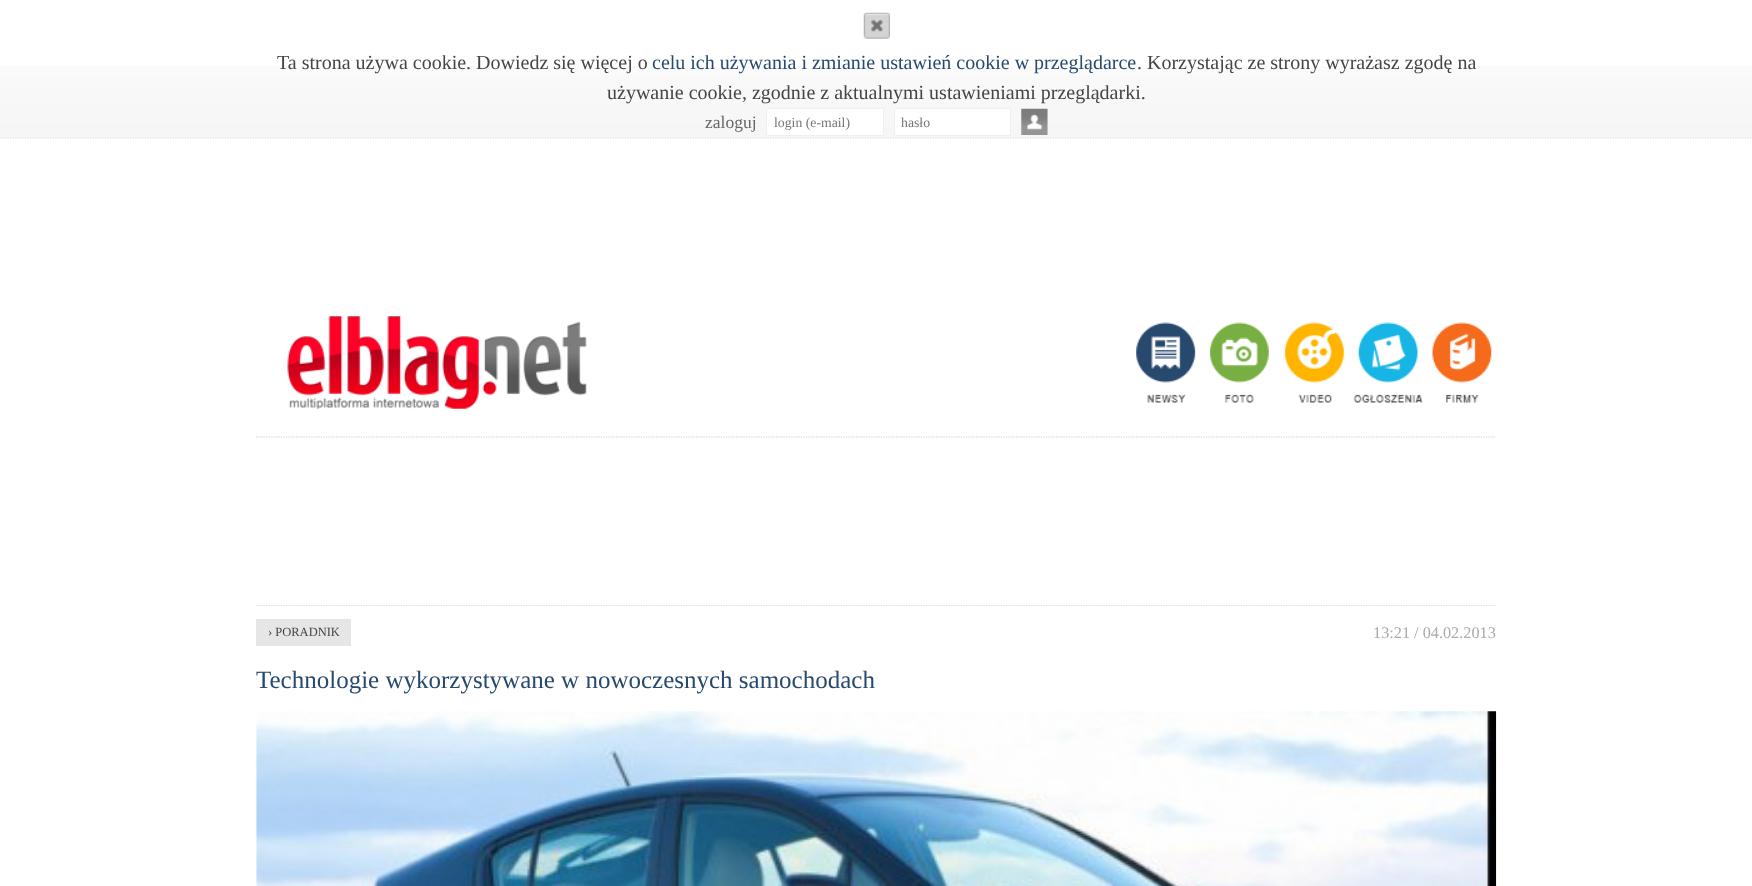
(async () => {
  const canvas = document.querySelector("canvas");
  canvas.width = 1752;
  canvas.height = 886;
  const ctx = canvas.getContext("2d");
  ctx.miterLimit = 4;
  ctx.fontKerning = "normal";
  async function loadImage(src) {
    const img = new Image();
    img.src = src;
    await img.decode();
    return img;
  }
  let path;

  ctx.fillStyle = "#ffffff";
  ctx.fillRect(0, 0, 1752, 886);
  ctx.drawImage(await loadImage("img/1.png"), 0, 66, 1752, 72);
  path = new Path2D("M0 138H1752.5");
  ctx.strokeStyle = "#d7d7d7";
  ctx.lineWidth = 1.2;
  ctx.setLineDash([1.25, 1.25]);
  ctx.stroke(path);
  ctx.drawImage(await loadImage("img/2.png"), 863, 12, 27, 27);
  ctx.beginPath();
  ctx.rect(766.5, 108.5, 117, 27);
  ctx.fill();
  ctx.strokeStyle = "#efefef";
  ctx.lineWidth = 1;
  ctx.setLineDash([]);
  ctx.stroke();
  ctx.beginPath();
  ctx.rect(894.5, 108.5, 116, 27);
  ctx.fill();
  ctx.stroke();
  ctx.fillStyle = "#efefef";
  ctx.fillRect(1021, 109, 27, 26);
  ctx.drawImage(await loadImage("img/3.png"), 1021, 108, 27, 27);
  path = new Path2D("M256 437H1496");
  ctx.strokeStyle = "#cccccc";
  ctx.lineWidth = 1.2;
  ctx.setLineDash([1.25, 1.25]);
  ctx.stroke(path);
  ctx.drawImage(await loadImage("img/4.png"), 287, 316, 300, 93);
  ctx.drawImage(await loadImage("img/5.png"), 1136, 322, 60, 81);
  ctx.drawImage(await loadImage("img/6.png"), 1209, 322, 60, 81);
  ctx.drawImage(await loadImage("img/7.png"), 1284, 322, 60, 81);
  ctx.drawImage(await loadImage("img/8.png"), 1353, 322, 70, 81);
  ctx.drawImage(await loadImage("img/9.png"), 1422, 322, 70, 81);
  path = new Path2D("M256 605.5H1496");
  ctx.strokeStyle = "#d7d7d7";
  ctx.stroke(path);
  ctx.fillStyle = "#e6e6e6";
  ctx.fillRect(256, 619, 95, 27);
  ctx.drawImage(await loadImage("img/10.png"), 256, 711, 1241, 175);
  ctx.font = "20px Liberation Serif";
  ctx.fillStyle = "#454545";
  ctx.fillText("Ta strona używa cookie. Dowiedz się więcej o", 277, 69);
  ctx.fillStyle = "#28496e";
  ctx.fillText("celu ich używania i zmianie ustawień cookie w przeglądarce", 652, 69);
  ctx.fillStyle = "#454545";
  ctx.fillText(". Korzystając ze strony wyrażasz zgodę na", 1137, 69);
  ctx.fillText("używanie cookie, zgodnie z aktualnymi ustawieniami przeglądarki.", 607, 99);
  ctx.font = "17.5px Liberation Serif";
  ctx.fillStyle = "#666666";
  ctx.fillText("zaloguj", 705, 128);
  ctx.font = "13.75px Liberation Serif";
  ctx.fillStyle = "#757575";
  ctx.fillText("login (e-mail)", 774, 127);
  ctx.fillText("hasło", 901, 127);
  ctx.font = "12.5px Liberation Serif";
  ctx.fillStyle = "#454545";
  ctx.fillText("› PORADNIK", 268, 636);
  ctx.font = "16.25px Liberation Serif";
  ctx.fillStyle = "#aaaaaa";
  ctx.fillText("13:21 / 04.02.2013", 1373, 638);
  ctx.font = "25px Liberation Serif";
  ctx.fillStyle = "#28496e";
  ctx.fillText("Technologie wykorzystywane w nowoczesnych samochodach", 256, 688);
})();
